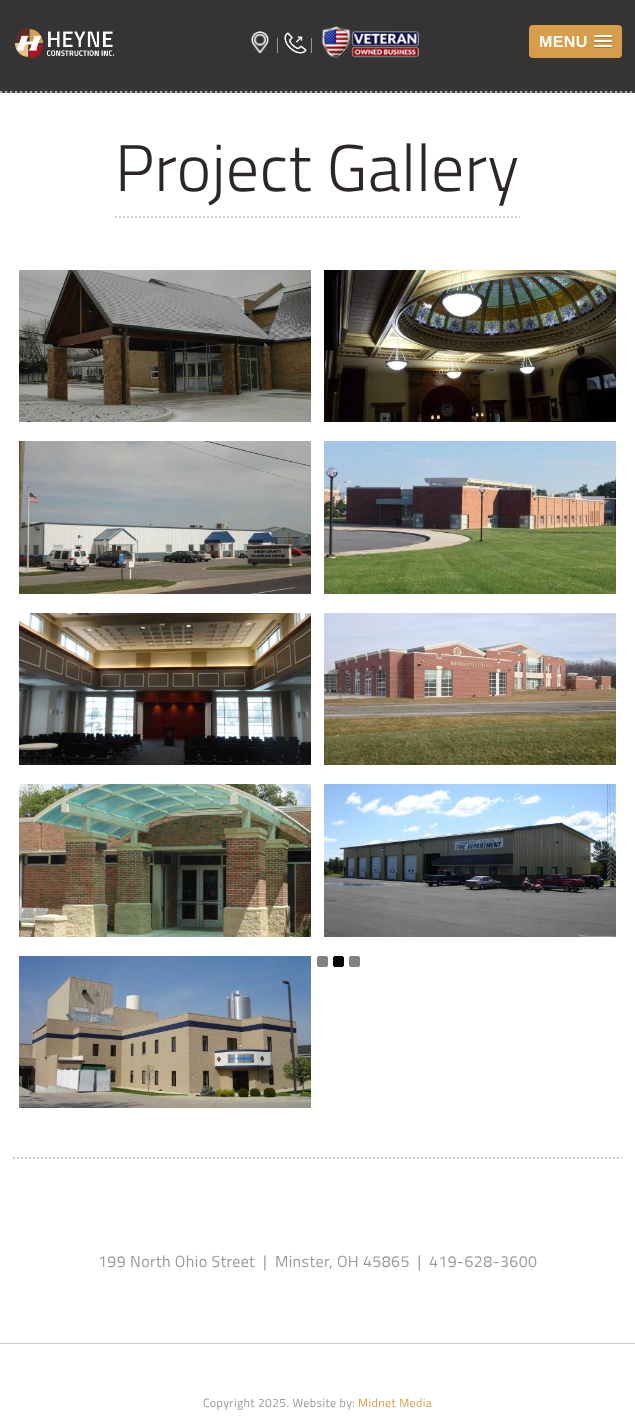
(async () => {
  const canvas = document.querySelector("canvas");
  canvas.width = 635;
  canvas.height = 1418;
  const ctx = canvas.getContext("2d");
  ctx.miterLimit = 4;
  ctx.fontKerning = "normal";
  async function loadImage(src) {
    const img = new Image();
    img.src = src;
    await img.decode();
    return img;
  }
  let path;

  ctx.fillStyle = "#ffffff";
  ctx.fillRect(0, 0, 635, 1418);
  ctx.fillStyle = "#343434";
  ctx.fillRect(0, 0, 635, 91);
  ctx.drawImage(await loadImage("img/1.png"), 0, 91, 635, 2);
  ctx.drawImage(await loadImage("img/2.png"), 15, 27, 100, 32);
  ctx.drawImage(await loadImage("img/3.png"), 251, 31, 18, 23);
  ctx.fillStyle = "#999999";
  ctx.fillRect(277, 38, 1, 15);
  ctx.drawImage(await loadImage("img/4.png"), 284, 32, 23, 22);
  ctx.fillRect(311, 38, 1, 15);
  ctx.drawImage(await loadImage("img/5.png"), 322, 26, 97, 35);
  ctx.fillStyle = "#d89d4a";
  ctx.beginPath();
  ctx.roundRect(529, 25, 93, 33, 4);
  ctx.fill();
  ctx.fillStyle = "#a27638";
  path = new Path2D("M594 36.5C593 38.5 597.5 38 597.5 38H608.5C608.5 38 613 38.5 612 36.5C611 37.5 604.5 37 603 37C601.5 37 595 37.5 594 36.5Z");
  ctx.fill(path);
  ctx.fillStyle = "#ffffff";
  ctx.beginPath();
  ctx.roundRect(594, 35, 18, 2, 1);
  ctx.fill();
  ctx.fillStyle = "#a27638";
  path = new Path2D("M594 41.5C593 43.5 597.5 43 597.5 43H608.5C608.5 43 613 43.5 612 41.5C611 42.5 604.5 42 603 42C601.5 42 595 42.5 594 41.5Z");
  ctx.fill(path);
  ctx.fillStyle = "#ffffff";
  ctx.beginPath();
  ctx.roundRect(594, 40, 18, 2, 1);
  ctx.fill();
  ctx.fillStyle = "#a27638";
  path = new Path2D("M594 46.5C593 48.5 597.5 48 597.5 48H608.5C608.5 48 613 48.5 612 46.5C611 47.5 604.5 47 603 47C601.5 47 595 47.5 594 46.5Z");
  ctx.fill(path);
  ctx.fillStyle = "#ffffff";
  ctx.beginPath();
  ctx.roundRect(594, 45, 18, 2, 1);
  ctx.fill();
  path = new Path2D("M115 217H520");
  ctx.strokeStyle = "#cccccc";
  ctx.lineWidth = 2;
  ctx.setLineDash([2, 2]);
  ctx.stroke(path);
  ctx.drawImage(await loadImage("img/6.png"), 19, 270, 292, 152);
  ctx.drawImage(await loadImage("img/7.png"), 324, 270, 292, 152);
  ctx.drawImage(await loadImage("img/8.png"), 19, 441, 292, 153);
  ctx.drawImage(await loadImage("img/9.png"), 324, 441, 292, 153);
  ctx.drawImage(await loadImage("img/10.png"), 19, 613, 292, 152);
  ctx.drawImage(await loadImage("img/11.png"), 324, 613, 292, 152);
  ctx.drawImage(await loadImage("img/12.png"), 19, 784, 292, 153);
  ctx.drawImage(await loadImage("img/13.png"), 324, 784, 292, 153);
  ctx.drawImage(await loadImage("img/14.png"), 19, 956, 292, 152);
  ctx.drawImage(await loadImage("img/15.png"), 317, 956, 43, 11);
  path = new Path2D("M13 1158H622");
  ctx.stroke(path);
  ctx.fillStyle = "#cccccc";
  ctx.fillRect(0, 1343, 635, 1);
  ctx.letterSpacing = "0.4px";
  ctx.font = "bold 16px Liberation Sans";
  ctx.fillStyle = "#ffffff";
  ctx.fillText("MENU", 539, 47);
  ctx.font = "300 66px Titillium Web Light";
  ctx.fillStyle = "#2c2626";
  ctx.fillText("Project Gallery", 115, 191);
  ctx.font = "16px Titillium Web";
  ctx.fillStyle = "#999999";
  ctx.fillText("199 North Ohio Street  |  Minster, OH 45865  |", 98, 1267);
  ctx.fillText("419-628-3600", 429, 1267);
  ctx.font = "12px Titillium Web";
  ctx.fillText("Copyright 2025. Website by:", 203, 1407);
  ctx.fillStyle = "#d89d4a";
  ctx.fillText("Midnet Media", 358, 1407);
})();
